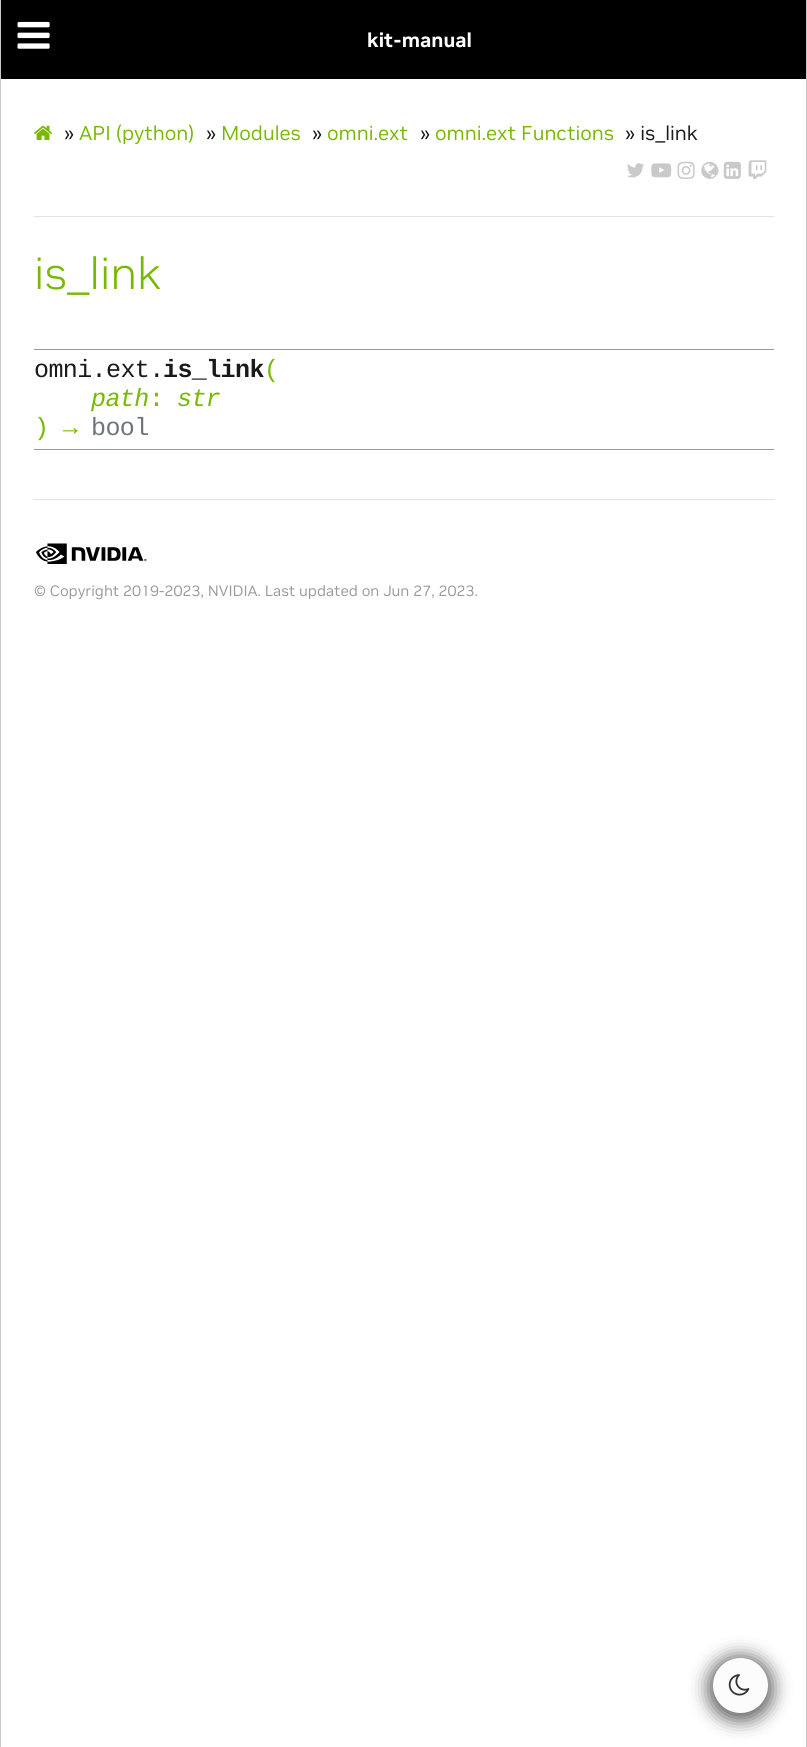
import math
import cairo


def use_color(cr, r, g, b):
  cr.set_source_rgb(r / 255, g / 255, b / 255)

def text(cr, x, y, s, family, size, color, bold=False, italic=False):
  cr.select_font_face(family, cairo.FONT_SLANT_ITALIC if italic else cairo.FONT_SLANT_NORMAL, cairo.FONT_WEIGHT_BOLD if bold else cairo.FONT_WEIGHT_NORMAL)
  cr.set_font_size(size)
  use_color(cr, *color)
  cr.move_to(x, y)
  cr.show_text(s)

def spaced_text(cr, x, y, s, letter, word):
  cr.move_to(x, y)
  for ch in s:
    cr.show_text(ch)
    cr.rel_move_to(letter + word * (ch == ' '), 0)

def box(cr, x, y, w, h, *color):
  use_color(cr, *color)
  cr.rectangle(x, y, w, h)
  cr.fill()

def round_rect(cr, x, y, w, h, r):
  cr.new_sub_path()
  for i, (u, v) in enumerate([(x + w - r, y + h - r), (x + r, y + h - r), (x + r, y + r), (x + w - r, y + r)]):
    cr.arc(u, v, r, i * math.pi / 2, (i + 1) * math.pi / 2)
  cr.close_path()

def shadow(cr, x, y, w, h, r, blur, alpha):
  cr.push_group_with_content(cairo.CONTENT_ALPHA)
  cr.set_operator(cairo.OPERATOR_SOURCE)
  for i in range(15, -16, -2):
    e = blur * i / 6
    if min(w, h) + 2 * e > 0:
      cr.set_source_rgba(0, 0, 0, alpha * math.erfc((i - 1) / 8.5) / 2)
      round_rect(cr, x - e, y - e, w + 2 * e, h + 2 * e, max(0, min(r + e + blur * .6, min(w, h) / 2 + e)))
      cr.fill()
  cr.mask(cr.pop_group())

def picture(cr, path, x, y, w, h):
  cr.save()
  cr.set_source_surface(cairo.ImageSurface.create_from_png(path), x, y)
  cr.rectangle(x, y, w, h)
  cr.fill()
  cr.restore()

def draw(cr):
  use_color(cr, 255, 255, 255)
  cr.paint()
  box(cr, 806, 0, 1, 1747, 201, 201, 201)
  box(cr, 0, 0, 1, 1747, 201, 201, 201)
  box(cr, 1, 0, 805, 79, 0, 0, 0)
  picture(cr, "img_01.png", 17, 21, 33, 28)
  picture(cr, "img_02.png", 34, 125, 18, 15)
  picture(cr, "img_03.png", 627, 163, 17, 15)
  picture(cr, "img_04.png", 651, 163, 21, 15)
  picture(cr, "img_05.png", 677, 161, 18, 18)
  picture(cr, "img_06.png", 701, 161, 18, 18)
  picture(cr, "img_07.png", 723, 161, 18, 18)
  picture(cr, "img_08.png", 748, 160, 19, 19)
  box(cr, 34, 216, 740, 1, 225, 228, 229)
  box(cr, 34, 349, 740, 1, 153, 153, 153)
  box(cr, 34, 449, 740, 1, 153, 153, 153)
  box(cr, 34, 499, 740, 1, 225, 228, 229)
  picture(cr, "img_09.png", 36, 543, 111, 21)
  use_color(cr, 0, 0, 0)
  shadow(cr, 708, 1656, 65, 65, 32.5, 9, 0.62)
  use_color(cr, 252, 252, 252)
  cr.arc(740.5, 1685.5, 27.5, 0, 2 * math.pi)
  cr.fill()
  picture(cr, "img_10.png", 728, 1674, 22, 22)
  text(cr, 367, 47, "kit-manual", "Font", 20, (255, 255, 255), bold=True)
  text(cr, 64, 140, "»", "Font", 20, (26, 26, 26))
  text(cr, 79, 140, "API (python)", "Font", 20, (118, 185, 0))
  text(cr, 206, 140, "»", "Font", 20, (26, 26, 26))
  text(cr, 221, 140, "Modules", "Font", 20, (118, 185, 0))
  text(cr, 312, 140, "»", "Font", 20, (26, 26, 26))
  text(cr, 327, 140, "omni.ext", "Font", 20, (118, 185, 0))
  text(cr, 420, 140, "»", "Font", 20, (26, 26, 26))
  text(cr, 435, 140, "omni.ext Functions", "Font", 20, (118, 185, 0))
  text(cr, 625, 140, "» is_link", "Font", 20, (26, 26, 26))
  text(cr, 34, 289, "is_link", "Font Light", 45, (118, 185, 0))
  cr.select_font_face("Liberation Mono")
  cr.set_font_size(25)
  use_color(cr, 26, 26, 26)
  spaced_text(cr, 34, 377, "omni.ext.", -0.6, 0)
  cr.select_font_face("Liberation Mono", cairo.FONT_SLANT_NORMAL, cairo.FONT_WEIGHT_BOLD)
  spaced_text(cr, 163, 377, "is_link", -0.6, 0)
  cr.select_font_face("Liberation Mono")
  use_color(cr, 118, 185, 0)
  spaced_text(cr, 264, 377, "(", -0.6, 0)
  cr.select_font_face("Liberation Mono", cairo.FONT_SLANT_ITALIC)
  spaced_text(cr, 91, 406, "path", -0.6, 0)
  cr.select_font_face("Liberation Mono")
  spaced_text(cr, 149, 406, ":", -0.6, 0)
  cr.select_font_face("Liberation Mono", cairo.FONT_SLANT_ITALIC)
  spaced_text(cr, 177, 406, "str", -0.6, 0)
  cr.select_font_face("Liberation Mono")
  spaced_text(cr, 34, 435, ") →", -0.6, 0)
  use_color(cr, 108, 117, 125)
  spaced_text(cr, 91, 435, "bool", -0.6, 0)
  text(cr, 34, 596, "© Copyright 2019-2023, NVIDIA. Last updated on Jun 27, 2023.", "Font", 15, (153, 153, 153))


surface = cairo.ImageSurface(cairo.FORMAT_RGB24, 807, 1747)
cr = cairo.Context(surface)
options = cairo.FontOptions()
options.set_hint_metrics(cairo.HINT_METRICS_OFF)
options.set_hint_style(cairo.HINT_STYLE_NONE)
cr.set_font_options(options)
cr.set_miter_limit(4)
draw(cr)
surface.write_to_png("out.png")
